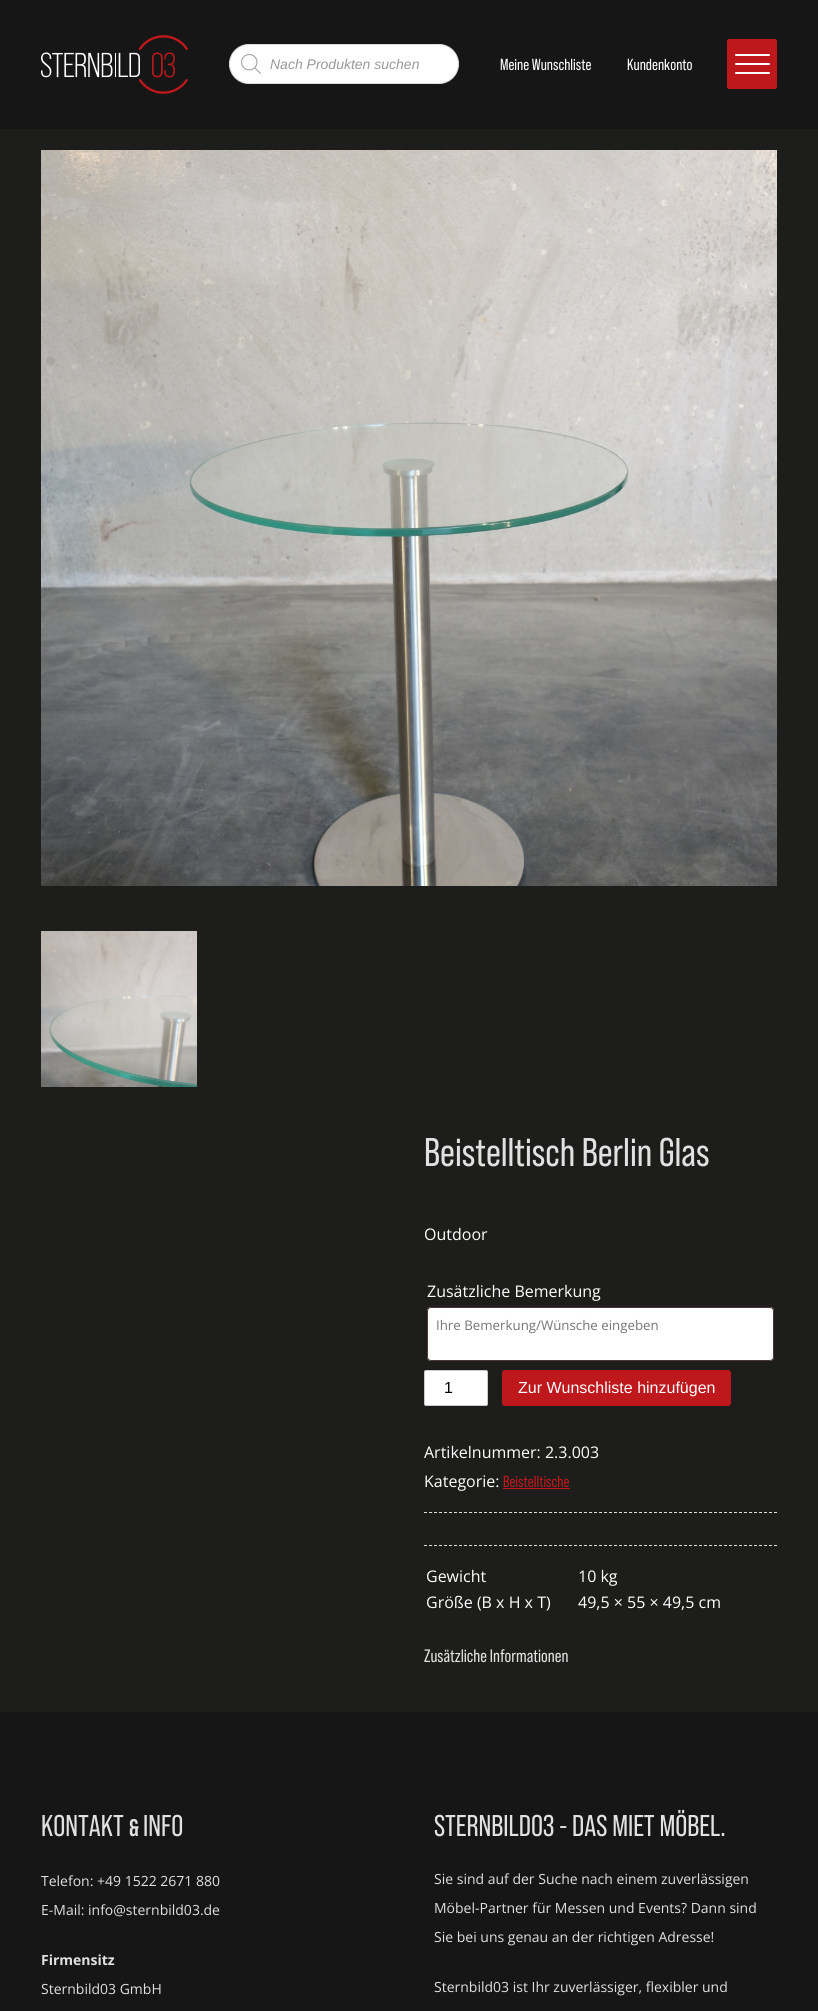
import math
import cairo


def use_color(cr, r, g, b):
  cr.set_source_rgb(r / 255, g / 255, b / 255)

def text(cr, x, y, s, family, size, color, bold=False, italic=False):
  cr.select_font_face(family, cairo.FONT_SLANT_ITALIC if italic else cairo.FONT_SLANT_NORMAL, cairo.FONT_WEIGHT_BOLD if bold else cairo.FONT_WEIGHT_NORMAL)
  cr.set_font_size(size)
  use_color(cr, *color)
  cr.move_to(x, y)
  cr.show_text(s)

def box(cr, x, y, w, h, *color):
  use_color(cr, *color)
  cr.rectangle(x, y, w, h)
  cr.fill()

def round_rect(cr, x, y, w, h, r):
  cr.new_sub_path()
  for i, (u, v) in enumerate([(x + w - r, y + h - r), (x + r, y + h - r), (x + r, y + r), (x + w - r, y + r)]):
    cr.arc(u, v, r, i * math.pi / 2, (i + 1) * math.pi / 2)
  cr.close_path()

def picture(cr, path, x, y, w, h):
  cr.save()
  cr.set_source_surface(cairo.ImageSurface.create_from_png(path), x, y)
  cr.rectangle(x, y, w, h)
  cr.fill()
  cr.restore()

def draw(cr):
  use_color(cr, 29, 29, 27)
  cr.paint()
  box(cr, 0, 0, 818, 129, 22, 22, 22)
  picture(cr, "img_01.png", 41, 35, 147, 59)
  use_color(cr, 255, 255, 255)
  round_rect(cr, 229.5, 44.5, 229, 39, 19.5)
  cr.fill_preserve()
  use_color(cr, 221, 221, 221)
  cr.set_line_width(1)
  cr.stroke()
  picture(cr, "img_02.png", 241, 54, 20, 20)
  use_color(cr, 190, 24, 28)
  round_rect(cr, 727, 39, 50, 50, 2)
  cr.fill()
  use_color(cr, 255, 255, 255)
  round_rect(cr, 735, 54, 35, 2, 1)
  cr.fill()
  round_rect(cr, 735, 63, 35, 2, 1)
  cr.fill()
  round_rect(cr, 735, 72, 35, 2, 1)
  cr.fill()
  picture(cr, "img_03.png", 41, 150, 736, 736)
  picture(cr, "img_04.png", 41, 931, 156, 156)
  round_rect(cr, 427, 1307, 347, 54, 4)
  cr.fill()
  round_rect(cr, 427.5, 1307.5, 346, 53, 3.5)
  cr.set_source_rgba(0.125, 0.027, 0.027, 0.8)
  cr.stroke()
  use_color(cr, 255, 255, 255)
  round_rect(cr, 424.5, 1370.5, 63, 35, 1.5)
  cr.fill_preserve()
  use_color(cr, 204, 204, 204)
  cr.stroke()
  use_color(cr, 191, 24, 28)
  round_rect(cr, 502, 1370, 229, 36, 3)
  cr.fill()
  box(cr, 503, 1488, 67, 1, 190, 24, 28)
  cr.new_path()
  cr.move_to(424, 1512.5)
  cr.line_to(777, 1512.5)
  use_color(cr, 221, 221, 221)
  cr.set_dash([3, 2])
  cr.stroke()
  cr.new_path()
  cr.move_to(424, 1545.5)
  cr.line_to(777, 1545.5)
  cr.stroke()
  box(cr, 0, 1712, 818, 299, 22, 22, 22)
  text(cr, 270, 69, "Nach Produkten suchen", "Liberation Sans", 14, (153, 153, 153), italic=True)
  text(cr, 500, 70, "Meine Wunschliste", "Bebas Neue", 16, (255, 255, 255))
  text(cr, 627, 70, "Kundenkonto", "Bebas Neue", 16, (255, 255, 255))
  text(cr, 424, 1166, "Beistelltisch Berlin Glas", "Bebas Neue", 40, (225, 225, 225))
  text(cr, 424, 1240, "Outdoor", "Open Sans", 16, (255, 255, 255))
  text(cr, 427, 1297, "Zusätzliche Bemerkung", "Open Sans", 16, (255, 255, 255))
  text(cr, 436, 1330, "Ihre Bemerkung/Wünsche eingeben", "Open Sans", 13.3, (117, 117, 117))
  text(cr, 444, 1393, "1", "Liberation Sans", 16, (0, 0, 0))
  text(cr, 518, 1393, "Zur Wunschliste hinzufügen", "Liberation Sans", 16, (255, 255, 255))
  text(cr, 424, 1458, "Artikelnummer: 2.3.003", "Open Sans", 16, (255, 255, 255))
  text(cr, 424, 1487, "Kategorie:", "Open Sans", 16, (255, 255, 255))
  text(cr, 503, 1487, "Beistelltische", "Bebas Neue", 16, (190, 24, 28))
  text(cr, 426, 1582, "Gewicht", "Open Sans", 16, (255, 255, 255))
  text(cr, 578, 1582, "10 kg", "Open Sans", 16, (255, 255, 255))
  text(cr, 426, 1608, "Größe (B x H x T)", "Open Sans", 16, (255, 255, 255))
  text(cr, 578, 1608, "49,5 × 55 × 49,5 cm", "Open Sans", 16, (255, 255, 255))
  text(cr, 424, 1662, "Zusätzliche Informationen", "Bebas Neue", 18, (225, 225, 225))
  text(cr, 41, 1836, "KONTAKT", "Bebas Neue", 30, (225, 225, 225))
  text(cr, 129, 1836, "&", "Bebas Neue", 24, (225, 225, 225), bold=True)
  text(cr, 143, 1836, "INFO", "Bebas Neue", 30, (225, 225, 225))
  text(cr, 41, 1886, "Telefon: +49 1522 2671 880", "Open Sans", 14, (225, 225, 225))
  text(cr, 41, 1915, "E-Mail: info@sternbild03.de", "Open Sans", 14, (225, 225, 225))
  text(cr, 41, 1965, "Firmensitz", "Open Sans", 14, (225, 225, 225), bold=True)
  text(cr, 41, 1994, "Sternbild03 GmbH", "Open Sans", 14, (225, 225, 225))
  text(cr, 434, 1836, "STERNBILD03 - DAS MIET MÖBEL.", "Bebas Neue", 30, (225, 225, 225))
  text(cr, 434, 1884, "Sie sind auf der Suche nach einem zuverlässigen", "Open Sans", 14, (225, 225, 225))
  text(cr, 434, 1913, "Möbel-Partner für Messen und Events? Dann sind", "Open Sans", 14, (225, 225, 225))
  text(cr, 434, 1942, "Sie bei uns genau an der richtigen Adresse!", "Open Sans", 14, (225, 225, 225))
  text(cr, 434, 1992, "Sternbild03 ist Ihr zuverlässiger, flexibler und", "Open Sans", 14, (225, 225, 225))


surface = cairo.ImageSurface(cairo.FORMAT_RGB24, 818, 2011)
cr = cairo.Context(surface)
options = cairo.FontOptions()
options.set_hint_metrics(cairo.HINT_METRICS_OFF)
options.set_hint_style(cairo.HINT_STYLE_NONE)
cr.set_font_options(options)
cr.set_miter_limit(4)
draw(cr)
surface.write_to_png("out.png")
